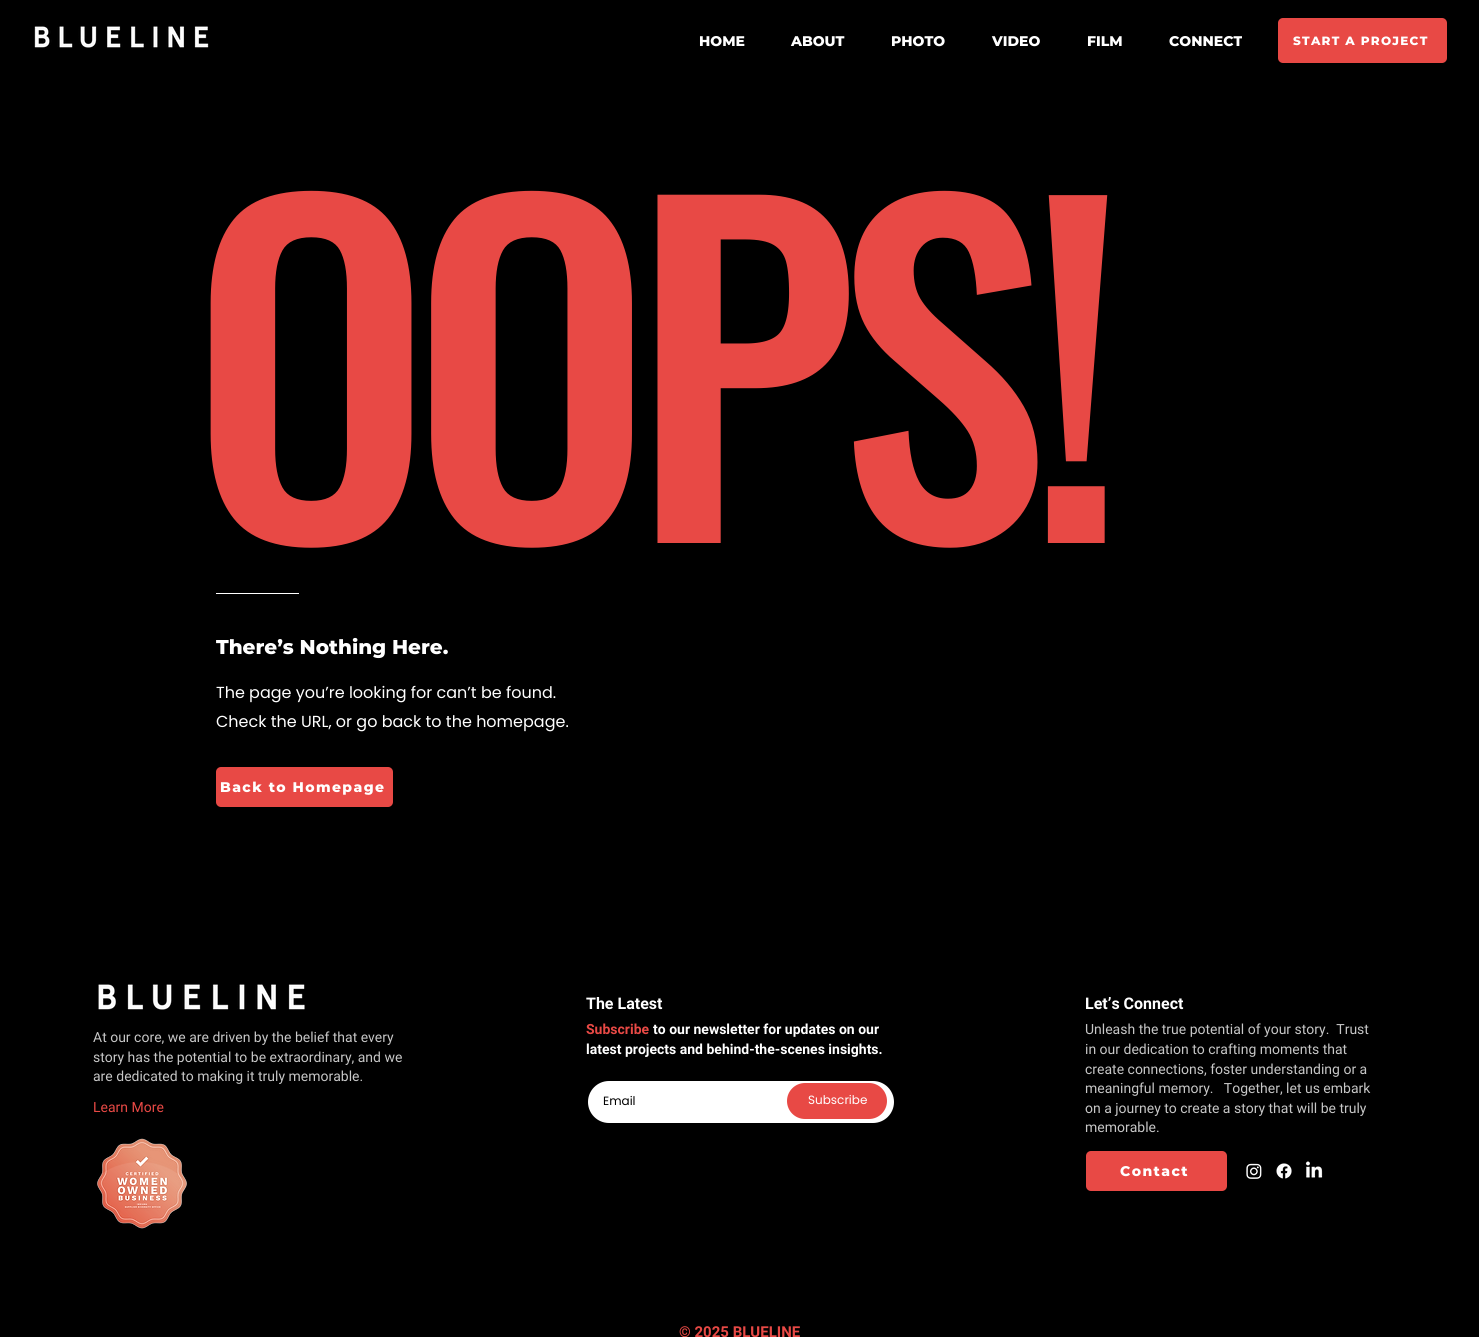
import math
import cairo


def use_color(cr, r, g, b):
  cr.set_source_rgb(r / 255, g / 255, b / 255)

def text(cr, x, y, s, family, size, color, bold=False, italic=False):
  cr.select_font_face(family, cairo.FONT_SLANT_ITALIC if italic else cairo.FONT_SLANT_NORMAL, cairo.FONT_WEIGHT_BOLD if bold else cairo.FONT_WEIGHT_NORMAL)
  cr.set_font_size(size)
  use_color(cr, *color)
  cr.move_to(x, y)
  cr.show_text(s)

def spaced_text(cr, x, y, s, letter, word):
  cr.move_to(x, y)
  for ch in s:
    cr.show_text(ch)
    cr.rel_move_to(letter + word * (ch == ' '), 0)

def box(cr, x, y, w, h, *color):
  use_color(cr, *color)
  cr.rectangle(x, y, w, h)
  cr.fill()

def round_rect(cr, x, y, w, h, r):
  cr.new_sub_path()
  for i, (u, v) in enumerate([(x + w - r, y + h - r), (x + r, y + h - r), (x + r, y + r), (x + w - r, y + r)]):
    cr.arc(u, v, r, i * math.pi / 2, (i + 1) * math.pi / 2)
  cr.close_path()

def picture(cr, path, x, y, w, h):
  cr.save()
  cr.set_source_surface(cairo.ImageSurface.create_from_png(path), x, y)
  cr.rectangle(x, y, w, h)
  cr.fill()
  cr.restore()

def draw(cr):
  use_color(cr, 0, 0, 0)
  cr.paint()
  picture(cr, "img_01.png", 34, 26, 175, 22)
  use_color(cr, 232, 73, 69)
  round_rect(cr, 1278, 18, 169, 45, 5)
  cr.fill()
  box(cr, 216, 593, 83, 1, 255, 255, 255)
  use_color(cr, 232, 73, 69)
  round_rect(cr, 216, 767, 177, 40, 5)
  cr.fill()
  picture(cr, "img_02.png", 98, 984, 207, 26)
  picture(cr, "img_03.png", 97, 1138, 90, 91)
  use_color(cr, 255, 255, 255)
  round_rect(cr, 587, 1080, 308, 44, 22)
  cr.fill_preserve()
  use_color(cr, 0, 0, 0)
  cr.stroke()
  use_color(cr, 232, 73, 69)
  round_rect(cr, 787, 1083, 100, 36, 18)
  cr.fill()
  round_rect(cr, 1086, 1151, 141, 40, 5)
  cr.fill()
  picture(cr, "img_04.png", 1246, 1163, 16, 16)
  picture(cr, "img_05.png", 1276, 1163, 16, 16)
  picture(cr, "img_06.png", 1305, 1161, 18, 17)
  text(cr, 699, 46, "HOME", "Montserrat ExtraBold", 14, (255, 255, 255))
  text(cr, 791, 46, "ABOUT", "Montserrat ExtraBold", 14, (255, 255, 255))
  text(cr, 891, 46, "PHOTO", "Montserrat ExtraBold", 14, (255, 255, 255))
  text(cr, 992, 46, "VIDEO", "Montserrat ExtraBold", 14, (255, 255, 255))
  text(cr, 1087, 46, "FILM", "Montserrat ExtraBold", 14, (255, 255, 255))
  text(cr, 1169, 46, "CONNECT", "Montserrat ExtraBold", 14, (255, 255, 255))
  cr.select_font_face("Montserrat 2 ExtraBold")
  cr.set_font_size(12)
  spaced_text(cr, 1293, 45, "START A PROJECT", 1.25, 0)
  cr.select_font_face("Oswald Medium")
  cr.set_font_size(430)
  use_color(cr, 232, 73, 69)
  spaced_text(cr, 190, 543, "OOPS!", -21.5, 0)
  text(cr, 216, 654, "There’s Nothing Here.", "Montserrat ExtraBold", 20, (255, 255, 255))
  text(cr, 216, 698, "The page you’re looking for can’t be found.", "Poppins", 16, (255, 255, 255))
  text(cr, 216, 727, "Check the URL, or go back to the homepage.", "Poppins", 16, (255, 255, 255))
  cr.select_font_face("Montserrat 2 ExtraBold")
  cr.set_font_size(14)
  spaced_text(cr, 220, 792, "Back to Homepage", 1.4, 0)
  text(cr, 93, 1042, "At our core, we are driven by the belief that every", "Roboto", 14, (199, 199, 199))
  text(cr, 93, 1062, "story has the potential to be extraordinary, and we", "Roboto", 14, (199, 199, 199))
  text(cr, 93, 1081, "are dedicated to making it truly memorable.", "Roboto", 14, (199, 199, 199))
  text(cr, 93, 1112, "Learn More", "Roboto", 14, (232, 73, 69))
  text(cr, 586, 1009, "The Latest", "Roboto", 16, (255, 255, 255), bold=True)
  text(cr, 586, 1034, "Subscribe", "Roboto", 14, (232, 73, 69), bold=True)
  text(cr, 653, 1034, "to our newsletter for updates on our", "Roboto", 14, (255, 255, 255), bold=True)
  text(cr, 586, 1054, "latest projects and behind-the-scenes insights.", "Roboto", 14, (255, 255, 255), bold=True)
  text(cr, 603, 1105, "Email", "Poppins", 12, (0, 0, 0))
  text(cr, 808, 1104, "Subscribe", "Poppins", 12, (255, 255, 255))
  text(cr, 1085, 1009, "Let’s Connect", "Roboto", 16, (255, 255, 255), bold=True)
  text(cr, 1085, 1034, "Unleash the true potential of your story.  Trust", "Roboto", 14, (199, 199, 199))
  text(cr, 1085, 1054, "in our dedication to crafting moments that", "Roboto", 14, (199, 199, 199))
  text(cr, 1085, 1074, "create connections, foster understanding or a", "Roboto", 14, (199, 199, 199))
  text(cr, 1085, 1093, "meaningful memory.   Together, let us embark", "Roboto", 14, (199, 199, 199))
  text(cr, 1085, 1113, "on a journey to create a story that will be truly", "Roboto", 14, (199, 199, 199))
  text(cr, 1085, 1132, "memorable.", "Roboto", 14, (199, 199, 199))
  cr.select_font_face("Montserrat 2 ExtraBold")
  use_color(cr, 255, 255, 255)
  spaced_text(cr, 1120, 1176, "Contact", 1.4, 0)
  text(cr, 679, 1337, "© 2025 BLUELINE", "Roboto", 15, (232, 73, 69), bold=True)


surface = cairo.ImageSurface(cairo.FORMAT_RGB24, 1479, 1337)
cr = cairo.Context(surface)
options = cairo.FontOptions()
options.set_hint_metrics(cairo.HINT_METRICS_OFF)
options.set_hint_style(cairo.HINT_STYLE_NONE)
cr.set_font_options(options)
cr.set_miter_limit(4)
draw(cr)
surface.write_to_png("out.png")
